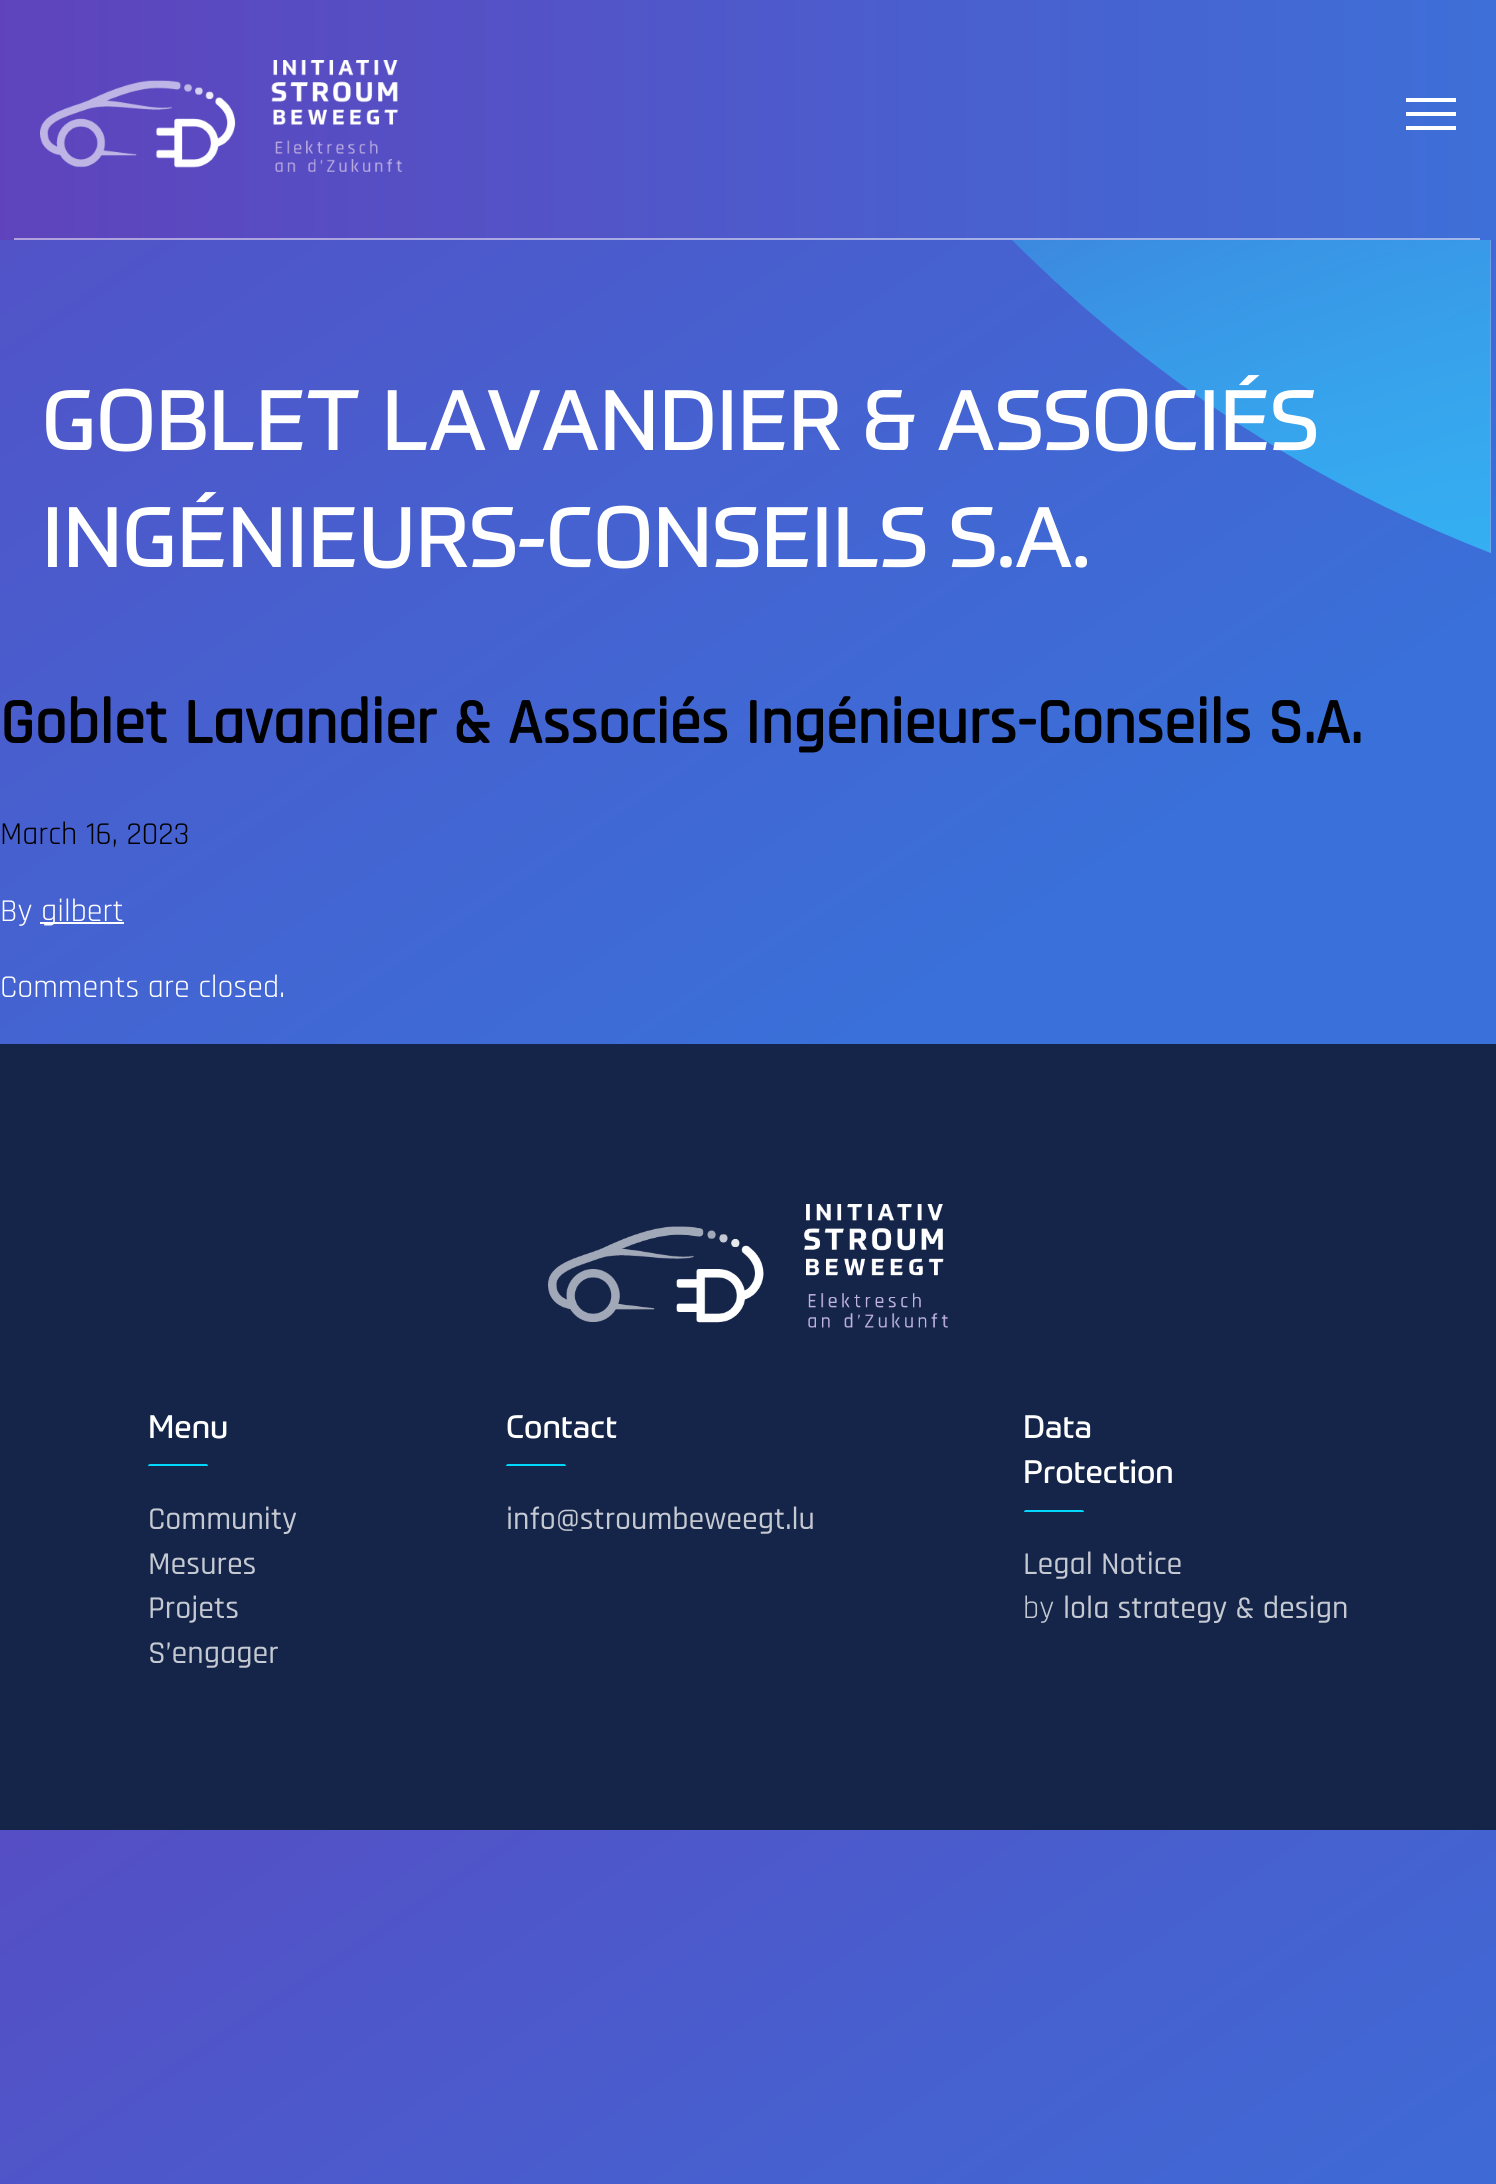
import math
import cairo


def use_color(cr, r, g, b):
  cr.set_source_rgb(r / 255, g / 255, b / 255)

def text(cr, x, y, s, family, size, color, bold=False, italic=False):
  cr.select_font_face(family, cairo.FONT_SLANT_ITALIC if italic else cairo.FONT_SLANT_NORMAL, cairo.FONT_WEIGHT_BOLD if bold else cairo.FONT_WEIGHT_NORMAL)
  cr.set_font_size(size)
  use_color(cr, *color)
  cr.move_to(x, y)
  cr.show_text(s)

def box(cr, x, y, w, h, *color):
  use_color(cr, *color)
  cr.rectangle(x, y, w, h)
  cr.fill()

def picture(cr, path, x, y, w, h):
  cr.save()
  cr.set_source_surface(cairo.ImageSurface.create_from_png(path), x, y)
  cr.rectangle(x, y, w, h)
  cr.fill()
  cr.restore()

def draw(cr):
  use_color(cr, 255, 255, 255)
  cr.paint()
  gradient = cairo.LinearGradient(-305, -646, 1406, 1891)
  gradient.add_color_stop_rgba(0, 0.392, 0.235, 0.725, 1)
  gradient.add_color_stop_rgba(0.67, 0.227, 0.439, 0.851, 1)
  cr.set_source(gradient)
  cr.rectangle(0, 240, 1496, 804)
  cr.fill()
  gradient = cairo.LinearGradient(-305, 1184, 1406, 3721)
  gradient.add_color_stop_rgba(0, 0.392, 0.235, 0.725, 1)
  gradient.add_color_stop_rgba(0.67, 0.227, 0.439, 0.851, 1)
  cr.set_source(gradient)
  cr.rectangle(0, 1830, 1496, 354)
  cr.fill()
  gradient = cairo.LinearGradient(-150, 120, 1496, 120)
  gradient.add_color_stop_rgba(0, 0.384, 0.247, 0.729, 1)
  gradient.add_color_stop_rgba(1, 0.243, 0.435, 0.847, 1)
  cr.set_source(gradient)
  cr.rectangle(0, 0, 1496, 240)
  cr.fill()
  picture(cr, "img_01.png", 40, 60, 362, 112)
  box(cr, 1406, 112, 50, 4, 255, 255, 255)
  box(cr, 1406, 98, 50, 4, 255, 255, 255)
  box(cr, 1406, 126, 50, 4, 255, 255, 255)
  cr.set_source_rgba(1, 1, 1, 0.5)
  cr.rectangle(14, 238, 1466, 2)
  cr.fill()
  picture(cr, "img_02.png", 1012, 240, 479, 313)
  box(cr, 40, 922, 84, 2, 255, 255, 255)
  box(cr, 0, 1044, 1496, 786, 21, 37, 74)
  picture(cr, "img_03.png", 548, 1204, 400, 124)
  use_color(cr, 0, 216, 255)
  cr.new_path()
  cr.move_to(150, 1464)
  cr.line_to(206, 1464)
  cr.curve_to(207, 1464, 208, 1465, 208, 1466)
  cr.line_to(148, 1466)
  cr.curve_to(148, 1465, 149, 1464, 150, 1464)
  cr.close_path()
  cr.fill()
  cr.new_path()
  cr.move_to(508, 1464)
  cr.line_to(564, 1464)
  cr.curve_to(565, 1464, 566, 1465, 566, 1466)
  cr.line_to(506, 1466)
  cr.curve_to(506, 1465, 507, 1464, 508, 1464)
  cr.close_path()
  cr.fill()
  cr.new_path()
  cr.move_to(1026, 1510)
  cr.line_to(1082, 1510)
  cr.curve_to(1083, 1510, 1084, 1511, 1084, 1512)
  cr.line_to(1024, 1512)
  cr.curve_to(1024, 1511, 1025, 1510, 1026, 1510)
  cr.close_path()
  cr.fill()
  text(cr, 42, 450, "GOBLET LAVANDIER & ASSOCIÉS", "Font", 84, (255, 255, 255))
  text(cr, 42, 567, "INGÉNIEURS-CONSEILS S.A.", "Font", 84, (255, 255, 255))
  text(cr, 0, 743, "Goblet Lavandier & Associés Ingénieurs-Conseils S.A.", "Rajdhani", 64, (0, 0, 0), bold=True)
  text(cr, 0, 844, "March 16, 2023", "Rajdhani", 32, (0, 0, 0))
  text(cr, 0, 921, "By", "Rajdhani", 32, (255, 255, 255))
  text(cr, 41, 921, "gilbert", "Rajdhani", 32, (255, 255, 255))
  text(cr, 0, 997, "Comments are closed.", "Rajdhani", 32, (255, 255, 255))
  text(cr, 148, 1438, "Menu", "Font", 32, (255, 255, 255))
  text(cr, 148, 1529, "Community", "Rajdhani Medium", 32, (197, 201, 210))
  text(cr, 148, 1574, "Mesures", "Rajdhani Medium", 32, (197, 201, 210))
  text(cr, 148, 1618, "Projets", "Rajdhani Medium", 32, (197, 201, 210))
  text(cr, 148, 1663, "S’engager", "Rajdhani Medium", 32, (197, 201, 210))
  text(cr, 506, 1438, "Contact", "Font", 32, (255, 255, 255))
  text(cr, 506, 1529, "info@stroumbeweegt.lu", "Rajdhani Medium", 32, (197, 201, 210))
  text(cr, 1023, 1438, "Data", "Font", 32, (255, 255, 255))
  text(cr, 1023, 1483, "Protection", "Font", 32, (255, 255, 255))
  text(cr, 1023, 1574, "Legal Notice", "Rajdhani Medium", 32, (197, 201, 210))
  text(cr, 1023, 1618, "by", "Rajdhani", 32, (197, 201, 210))
  text(cr, 1063, 1618, "lola strategy & design", "Rajdhani Medium", 32, (197, 201, 210))


surface = cairo.ImageSurface(cairo.FORMAT_RGB24, 1496, 2184)
cr = cairo.Context(surface)
options = cairo.FontOptions()
options.set_hint_metrics(cairo.HINT_METRICS_OFF)
options.set_hint_style(cairo.HINT_STYLE_NONE)
cr.set_font_options(options)
cr.set_miter_limit(4)
draw(cr)
surface.write_to_png("out.png")
